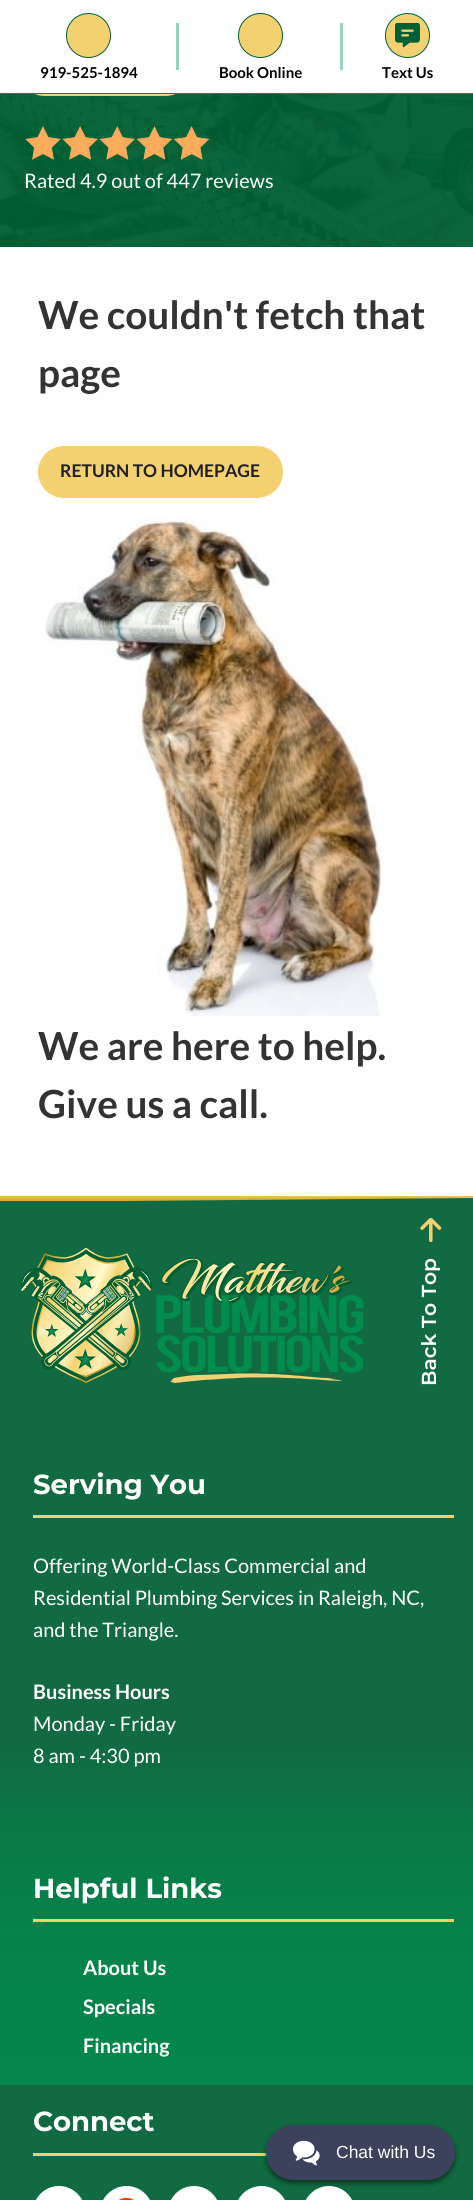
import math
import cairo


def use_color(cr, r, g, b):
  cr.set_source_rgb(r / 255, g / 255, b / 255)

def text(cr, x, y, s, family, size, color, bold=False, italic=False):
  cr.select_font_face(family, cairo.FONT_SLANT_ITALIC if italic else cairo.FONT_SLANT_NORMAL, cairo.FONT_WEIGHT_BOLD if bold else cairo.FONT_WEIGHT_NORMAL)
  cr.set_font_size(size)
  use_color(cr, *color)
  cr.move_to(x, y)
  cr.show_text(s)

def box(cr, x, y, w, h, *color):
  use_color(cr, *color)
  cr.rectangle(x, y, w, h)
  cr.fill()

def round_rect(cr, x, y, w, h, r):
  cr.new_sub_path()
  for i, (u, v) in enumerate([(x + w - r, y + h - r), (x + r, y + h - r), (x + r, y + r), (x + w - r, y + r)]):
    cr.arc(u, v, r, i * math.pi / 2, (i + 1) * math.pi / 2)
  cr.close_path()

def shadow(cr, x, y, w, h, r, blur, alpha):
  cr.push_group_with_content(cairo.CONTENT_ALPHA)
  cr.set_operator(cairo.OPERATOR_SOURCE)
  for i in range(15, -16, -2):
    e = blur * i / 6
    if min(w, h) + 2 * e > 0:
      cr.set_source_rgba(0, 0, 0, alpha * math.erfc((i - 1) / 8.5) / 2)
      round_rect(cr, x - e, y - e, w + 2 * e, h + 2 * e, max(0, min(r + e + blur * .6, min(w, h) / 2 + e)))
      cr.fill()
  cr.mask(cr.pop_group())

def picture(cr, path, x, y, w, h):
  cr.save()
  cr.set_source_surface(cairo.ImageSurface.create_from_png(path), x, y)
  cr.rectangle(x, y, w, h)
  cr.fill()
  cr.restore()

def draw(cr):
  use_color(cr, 255, 255, 255)
  cr.paint()
  picture(cr, "img_02.png", 0, 94, 473, 153)
  use_color(cr, 243, 209, 113)
  round_rect(cr, 19, 45, 172, 51, 25.5)
  cr.fill()
  box(cr, 19, 45, 172, 48, 255, 255, 255)
  box(cr, 0, 93, 473, 1, 0, 141, 78)
  use_color(cr, 243, 209, 113)
  cr.arc(88.5, 35.5, 22, 0, 2 * math.pi)
  cr.fill_preserve()
  use_color(cr, 0, 95, 51)
  cr.set_line_width(1)
  cr.stroke()
  box(cr, 176, 23, 3, 47, 153, 209, 184)
  use_color(cr, 243, 209, 113)
  cr.arc(260.5, 35.5, 22, 0, 2 * math.pi)
  cr.fill_preserve()
  use_color(cr, 0, 95, 51)
  cr.stroke()
  box(cr, 340, 23, 3, 47, 153, 209, 184)
  use_color(cr, 243, 209, 113)
  cr.arc(407.5, 35.5, 22, 0, 2 * math.pi)
  cr.fill_preserve()
  use_color(cr, 0, 95, 51)
  cr.stroke()
  picture(cr, "img_01.png", 395, 23, 25, 25)
  picture(cr, "img_03.png", 25, 126, 185, 34)
  use_color(cr, 243, 209, 113)
  round_rect(cr, 38, 446, 245, 52, 26)
  cr.fill()
  picture(cr, "img_04.png", 45, 516, 340, 500)
  picture(cr, "img_06.png", 0, 1198, 473, 1002)
  picture(cr, "img_05.png", 420, 1218, 22, 25)
  cr.save()
  cr.rectangle(0, 1196, 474, 5)
  cr.clip()
  gradient = cairo.LinearGradient(11, 1199, 11, 1191)
  gradient.add_color_stop_rgba(0, 0.867, 0.69, 0.212, 1)
  gradient.add_color_stop_rgba(0.34, 0.906, 0.765, 0.361, 1)
  gradient.add_color_stop_rgba(0.48, 1, 0.949, 0.729, 1)
  gradient.add_color_stop_rgba(0.62, 0.898, 0.749, 0.329, 1)
  gradient.add_color_stop_rgba(1, 0.867, 0.69, 0.212, 1)
  cr.set_source(gradient)
  cr.new_path()
  cr.move_to(0, 1202)
  cr.line_to(0, 1196)
  cr.line_to(473, 1196)
  cr.line_to(473, 1198)
  cr.close_path()
  cr.fill()
  cr.restore()
  picture(cr, "img_07.png", 21, 1247, 343, 136)
  box(cr, 33, 1515, 421, 3, 243, 209, 113)
  box(cr, 33, 1919, 421, 3, 243, 209, 113)
  box(cr, 33, 2153, 234, 3, 243, 209, 113)
  use_color(cr, 255, 255, 255)
  round_rect(cr, 33, 2186, 52, 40, 26)
  cr.fill()
  round_rect(cr, 100, 2186, 53, 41, 26.5)
  cr.fill()
  picture(cr, "img_08.png", 118, 2197, 16, 3)
  round_rect(cr, 168, 2186, 52, 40, 26)
  cr.fill()
  round_rect(cr, 235, 2186, 53, 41, 26.5)
  cr.fill()
  round_rect(cr, 303, 2186, 52, 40, 26)
  cr.fill()
  use_color(cr, 0, 0, 0)
  shadow(cr, 266, 2128, 189, 55, 27.5, 2.5, 0.5)
  use_color(cr, 60, 66, 92)
  round_rect(cr, 266, 2125, 189, 55, 27.5)
  cr.fill()
  picture(cr, "img_09.png", 292, 2140, 28, 26)
  text(cr, 40, 78, "919-525-1894", "Lato", 15, (0, 0, 0), bold=True)
  text(cr, 219, 78, "Book Online", "Lato", 15, (0, 0, 0), bold=True)
  text(cr, 382, 78, "Text Us", "Lato", 15, (0, 0, 0), bold=True)
  text(cr, 24, 188, "Rated 4.9 out of 447 reviews", "Lato", 20, (255, 255, 255))
  text(cr, 38, 329, "We couldn't fetch that", "Lato", 38.75, (51, 51, 51), bold=True)
  text(cr, 38, 387, "page", "Lato", 38.75, (51, 51, 51), bold=True)
  text(cr, 60, 477, "RETURN TO HOMEPAGE", "Lato", 17.5, (32, 33, 36), bold=True)
  text(cr, 38, 1060, "We are here to help.", "Lato", 38.75, (51, 51, 51), bold=True)
  text(cr, 38, 1118, "Give us a call.", "Lato", 38.75, (51, 51, 51), bold=True)
  cr.save()
  cr.translate(436, 1386)
  cr.rotate(-90 * math.pi / 180)
  text(cr, 0, 0, "Back To Top", "Montserrat SemiBold", 20.25, (255, 255, 255))
  cr.restore()
  text(cr, 33, 1494, "Serving You", "Montserrat", 27.5, (255, 255, 255), bold=True)
  text(cr, 33, 1573, "Offering World-Class Commercial and", "Lato", 20, (255, 255, 255))
  text(cr, 33, 1605, "Residential Plumbing Services in Raleigh, NC,", "Lato", 20, (255, 255, 255))
  text(cr, 33, 1637, "and the Triangle.", "Lato", 20, (255, 255, 255))
  text(cr, 33, 1699, "Business Hours", "Lato", 20, (255, 255, 255), bold=True)
  text(cr, 33, 1731, "Monday - Friday", "Lato", 20, (255, 255, 255))
  text(cr, 33, 1763, "8 am - 4:30 pm", "Lato", 20, (255, 255, 255))
  text(cr, 33, 1898, "Helpful Links", "Montserrat", 27.5, (255, 255, 255), bold=True)
  text(cr, 83, 1975, "About Us", "Lato", 20, (255, 255, 255), bold=True)
  text(cr, 83, 2014, "Specials", "Lato", 20, (255, 255, 255), bold=True)
  text(cr, 83, 2053, "Financing", "Lato", 20, (255, 255, 255), bold=True)
  text(cr, 33, 2131, "Connect", "Montserrat", 27.5, (255, 255, 255), bold=True)
  text(cr, 336, 2158, "Chat with Us", "Liberation Sans", 17.5, (255, 255, 255))


surface = cairo.ImageSurface(cairo.FORMAT_RGB24, 473, 2200)
cr = cairo.Context(surface)
options = cairo.FontOptions()
options.set_hint_metrics(cairo.HINT_METRICS_OFF)
options.set_hint_style(cairo.HINT_STYLE_NONE)
cr.set_font_options(options)
cr.set_miter_limit(4)
draw(cr)
surface.write_to_png("out.png")
